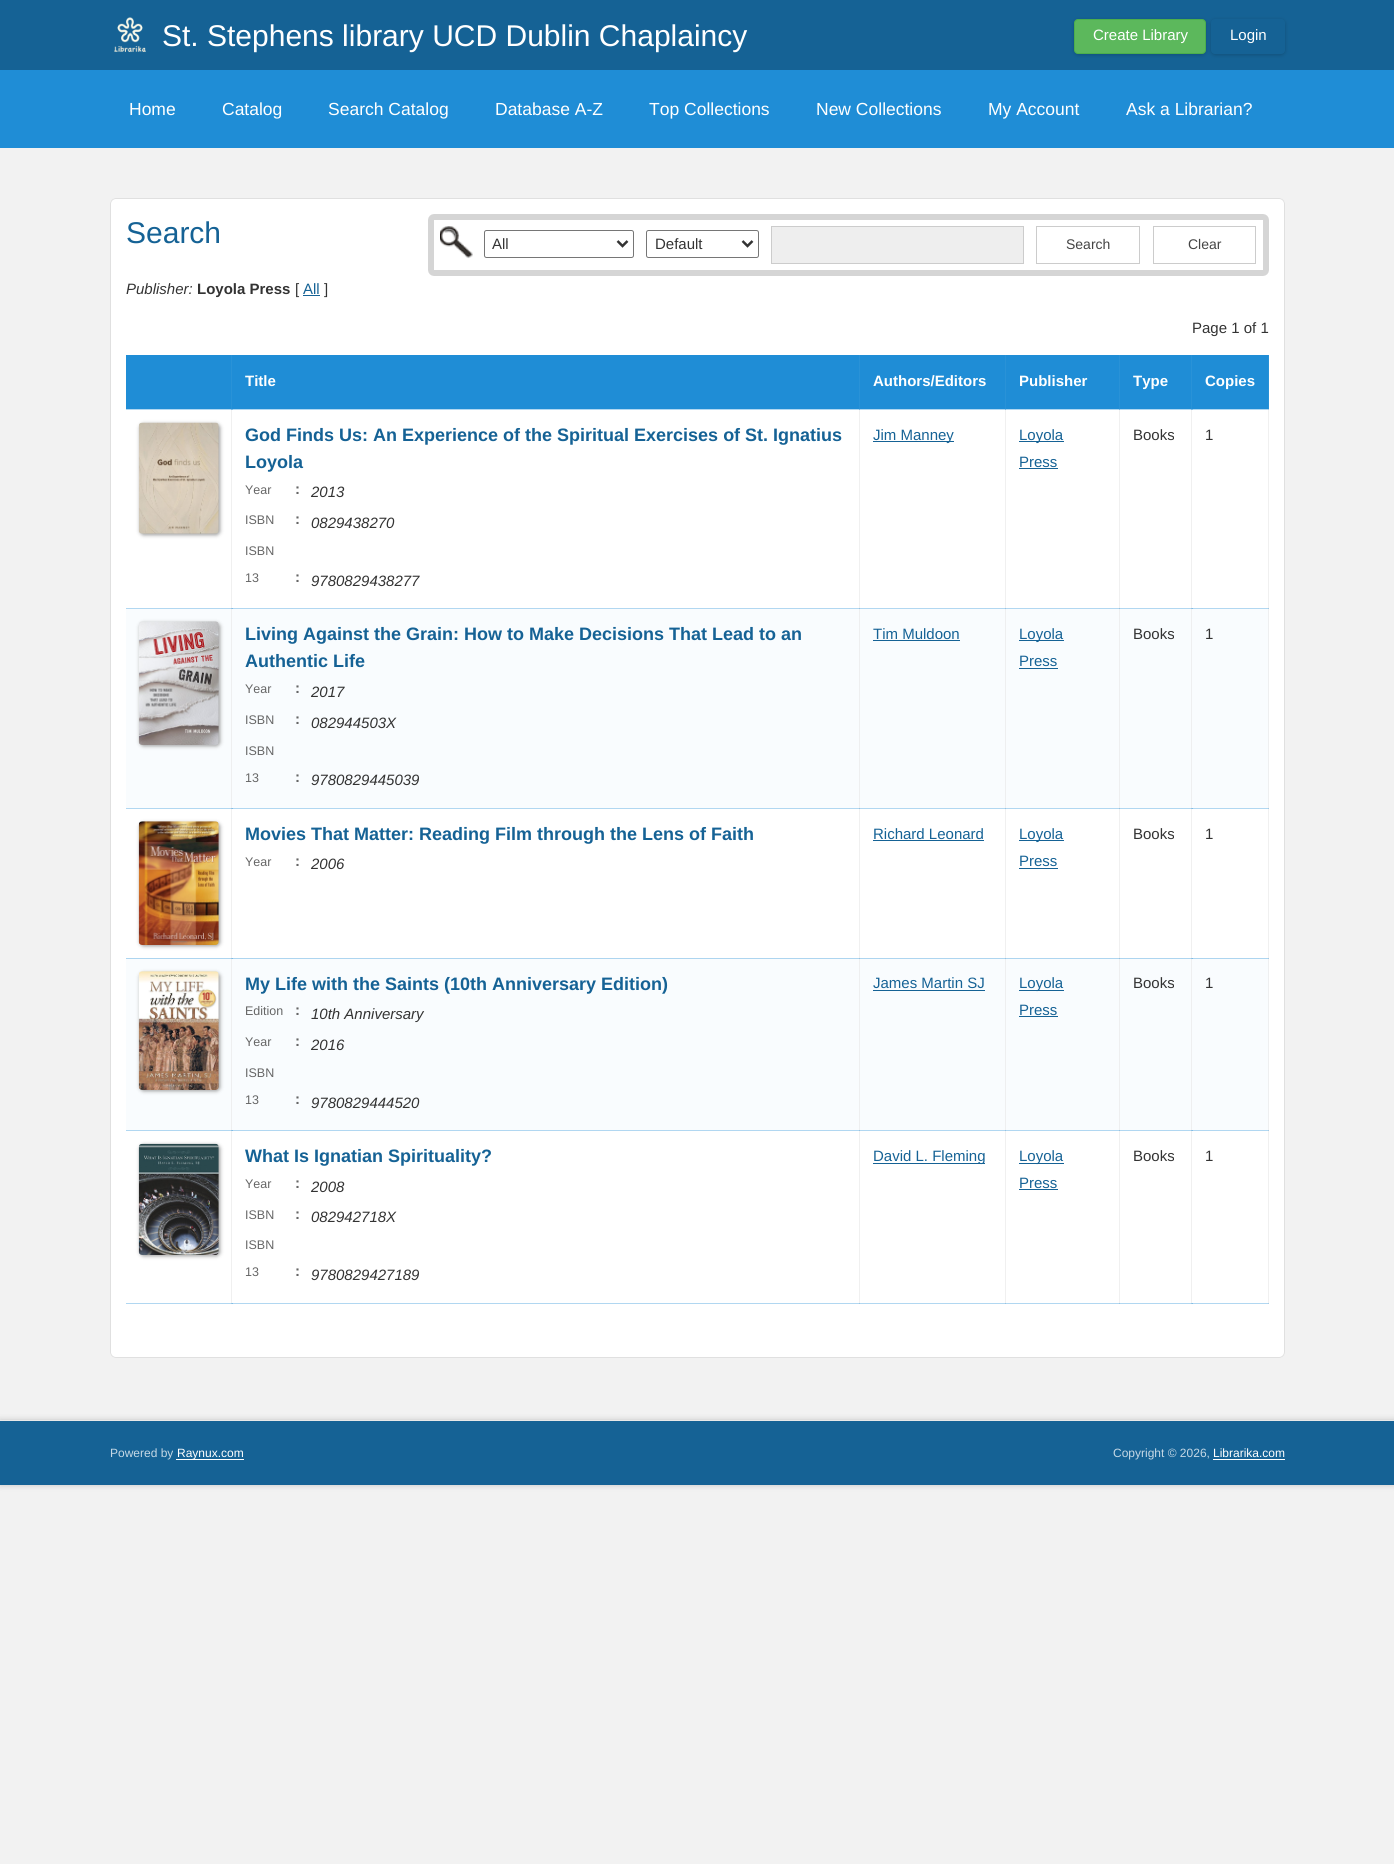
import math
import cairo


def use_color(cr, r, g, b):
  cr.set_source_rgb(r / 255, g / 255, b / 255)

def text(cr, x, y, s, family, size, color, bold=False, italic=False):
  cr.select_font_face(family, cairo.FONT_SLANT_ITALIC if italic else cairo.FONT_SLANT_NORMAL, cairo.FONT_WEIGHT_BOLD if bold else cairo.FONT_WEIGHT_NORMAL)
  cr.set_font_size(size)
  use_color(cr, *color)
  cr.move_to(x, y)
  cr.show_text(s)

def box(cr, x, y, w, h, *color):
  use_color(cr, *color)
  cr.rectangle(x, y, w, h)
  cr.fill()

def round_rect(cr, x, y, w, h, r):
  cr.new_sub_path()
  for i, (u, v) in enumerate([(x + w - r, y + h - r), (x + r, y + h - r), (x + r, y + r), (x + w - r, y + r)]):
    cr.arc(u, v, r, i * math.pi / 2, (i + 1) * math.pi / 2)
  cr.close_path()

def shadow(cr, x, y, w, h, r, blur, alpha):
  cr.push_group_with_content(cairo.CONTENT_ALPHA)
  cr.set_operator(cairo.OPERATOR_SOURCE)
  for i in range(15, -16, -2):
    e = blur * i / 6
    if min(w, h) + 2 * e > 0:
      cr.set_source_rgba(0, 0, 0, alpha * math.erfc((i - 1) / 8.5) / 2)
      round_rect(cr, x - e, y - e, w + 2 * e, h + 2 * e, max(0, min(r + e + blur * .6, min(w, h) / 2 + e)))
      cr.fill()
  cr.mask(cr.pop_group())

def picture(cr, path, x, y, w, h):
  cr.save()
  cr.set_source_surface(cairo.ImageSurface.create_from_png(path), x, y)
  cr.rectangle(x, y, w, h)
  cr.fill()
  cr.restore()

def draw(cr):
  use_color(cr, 242, 242, 242)
  cr.paint()
  box(cr, 0, 0, 1394, 70, 21, 98, 149)
  picture(cr, "img_01.png", 114, 17, 32, 35)
  use_color(cr, 0, 0, 0)
  shadow(cr, 1074, 20, 132, 35, 4, 2, 0.2)
  use_color(cr, 92, 184, 92)
  round_rect(cr, 1074.5, 19.5, 131, 34, 3.5)
  cr.fill_preserve()
  use_color(cr, 76, 174, 76)
  cr.set_line_width(1)
  cr.stroke()
  use_color(cr, 0, 0, 0)
  shadow(cr, 1211, 20, 74, 35, 4, 2, 0.2)
  use_color(cr, 21, 98, 149)
  round_rect(cr, 1211.5, 19.5, 73, 34, 3.5)
  cr.fill_preserve()
  cr.stroke()
  box(cr, 0, 70, 1394, 78, 31, 141, 214)
  use_color(cr, 255, 255, 255)
  round_rect(cr, 110, 198, 1175, 1160, 6)
  cr.fill()
  box(cr, 126, 409, 1143, 1, 177, 215, 241)
  box(cr, 231, 409, 2, 1, 126, 189, 232)
  box(cr, 1191, 409, 2, 1, 126, 189, 232)
  box(cr, 126, 608, 107, 1, 177, 215, 241)
  box(cr, 231, 409, 1, 200, 240, 240, 240)
  box(cr, 231, 409, 1, 1, 121, 183, 225)
  box(cr, 231, 608, 629, 1, 177, 215, 241)
  box(cr, 231, 608, 2, 1, 126, 189, 232)
  box(cr, 859, 409, 1, 200, 240, 240, 240)
  box(cr, 859, 409, 1, 1, 121, 183, 225)
  box(cr, 859, 608, 147, 1, 177, 215, 241)
  box(cr, 1005, 409, 1, 200, 240, 240, 240)
  box(cr, 1005, 409, 1, 1, 121, 183, 225)
  box(cr, 1005, 608, 115, 1, 177, 215, 241)
  box(cr, 1119, 409, 1, 200, 240, 240, 240)
  box(cr, 1119, 409, 1, 1, 121, 183, 225)
  box(cr, 1119, 608, 74, 1, 177, 215, 241)
  box(cr, 1191, 409, 1, 200, 240, 240, 240)
  box(cr, 1191, 409, 1, 1, 121, 183, 225)
  box(cr, 1191, 608, 78, 1, 177, 215, 241)
  box(cr, 1191, 608, 2, 1, 126, 189, 232)
  box(cr, 1268, 409, 1, 200, 240, 240, 240)
  box(cr, 1268, 409, 1, 1, 167, 205, 231)
  box(cr, 126, 808, 1143, 1, 177, 215, 241)
  box(cr, 231, 608, 1, 1, 147, 194, 226)
  box(cr, 231, 808, 2, 1, 126, 189, 232)
  box(cr, 859, 608, 1, 1, 147, 194, 226)
  box(cr, 1005, 608, 1, 1, 147, 194, 226)
  box(cr, 1119, 608, 1, 1, 147, 194, 226)
  box(cr, 1191, 608, 1, 1, 147, 194, 226)
  box(cr, 1191, 808, 2, 1, 126, 189, 232)
  box(cr, 1268, 608, 1, 1, 164, 202, 228)
  box(cr, 231, 808, 1, 151, 240, 240, 240)
  box(cr, 231, 808, 1, 1, 147, 194, 226)
  box(cr, 859, 808, 1, 151, 240, 240, 240)
  box(cr, 859, 808, 1, 1, 147, 194, 226)
  box(cr, 1005, 808, 1, 151, 240, 240, 240)
  box(cr, 1005, 808, 1, 1, 147, 194, 226)
  box(cr, 1119, 808, 1, 151, 240, 240, 240)
  box(cr, 1119, 808, 1, 1, 147, 194, 226)
  box(cr, 1191, 808, 1, 151, 240, 240, 240)
  box(cr, 1191, 808, 1, 1, 147, 194, 226)
  box(cr, 1268, 808, 1, 151, 240, 240, 240)
  box(cr, 1268, 808, 1, 1, 164, 202, 228)
  box(cr, 126, 1130, 1143, 1, 177, 215, 241)
  box(cr, 231, 1130, 2, 1, 126, 189, 232)
  box(cr, 1191, 1130, 2, 1, 126, 189, 232)
  box(cr, 126, 1303, 107, 1, 177, 215, 241)
  box(cr, 231, 1130, 1, 174, 240, 240, 240)
  box(cr, 231, 1130, 1, 1, 147, 194, 226)
  box(cr, 231, 1303, 629, 1, 177, 215, 241)
  box(cr, 231, 1303, 2, 1, 126, 189, 232)
  box(cr, 231, 1303, 1, 1, 149, 196, 228)
  box(cr, 859, 1130, 1, 174, 240, 240, 240)
  box(cr, 859, 1130, 1, 1, 147, 194, 226)
  box(cr, 859, 1303, 147, 1, 177, 215, 241)
  box(cr, 859, 1303, 1, 1, 149, 196, 228)
  box(cr, 1005, 1130, 1, 174, 240, 240, 240)
  box(cr, 1005, 1130, 1, 1, 147, 194, 226)
  box(cr, 1005, 1303, 115, 1, 177, 215, 241)
  box(cr, 1005, 1303, 1, 1, 149, 196, 228)
  box(cr, 1119, 1130, 1, 174, 240, 240, 240)
  box(cr, 1119, 1130, 1, 1, 147, 194, 226)
  box(cr, 1119, 1303, 74, 1, 177, 215, 241)
  box(cr, 1119, 1303, 1, 1, 149, 196, 228)
  box(cr, 1191, 1130, 1, 174, 240, 240, 240)
  box(cr, 1191, 1130, 1, 1, 147, 194, 226)
  box(cr, 1191, 1303, 78, 1, 177, 215, 241)
  box(cr, 1191, 1303, 2, 1, 126, 189, 232)
  box(cr, 1191, 1303, 1, 1, 149, 196, 228)
  round_rect(cr, 110.5, 198.5, 1174, 1159, 5.5)
  use_color(cr, 224, 224, 224)
  cr.stroke()
  round_rect(cr, 431, 217, 835, 56, 3)
  use_color(cr, 213, 213, 213)
  cr.set_line_width(6)
  cr.stroke()
  picture(cr, "img_02.png", 440, 226, 33, 33)
  round_rect(cr, 484.5, 230.5, 149, 27, 2)
  use_color(cr, 118, 118, 118)
  cr.set_line_width(1)
  cr.stroke()
  cr.new_path()
  cr.move_to(617.5, 241)
  cr.line_to(622.5, 246)
  cr.line_to(627.5, 241)
  use_color(cr, 51, 51, 51)
  cr.set_line_width(2.5)
  cr.stroke()
  round_rect(cr, 646.5, 230.5, 112, 27, 2)
  use_color(cr, 118, 118, 118)
  cr.set_line_width(1)
  cr.stroke()
  cr.new_path()
  cr.move_to(742.5, 241)
  cr.line_to(747.5, 246)
  cr.line_to(752.5, 241)
  use_color(cr, 51, 51, 51)
  cr.set_line_width(2.5)
  cr.stroke()
  use_color(cr, 238, 238, 238)
  cr.rectangle(771.5, 226.5, 252, 37)
  cr.fill_preserve()
  use_color(cr, 204, 204, 204)
  cr.set_line_width(1)
  cr.stroke()
  cr.rectangle(1036.5, 226.5, 103, 37)
  cr.stroke()
  cr.rectangle(1153.5, 226.5, 102, 37)
  cr.stroke()
  box(cr, 303, 295, 17, 1, 21, 98, 149)
  box(cr, 126, 355, 1143, 1, 31, 141, 214)
  box(cr, 231, 355, 1, 1, 41, 146, 215)
  box(cr, 859, 355, 1, 1, 41, 146, 215)
  box(cr, 1005, 355, 1, 1, 41, 146, 215)
  box(cr, 1119, 355, 1, 1, 41, 146, 215)
  box(cr, 1191, 355, 1, 1, 41, 146, 215)
  box(cr, 1268, 355, 1, 1, 41, 146, 215)
  box(cr, 126, 356, 733, 53, 31, 141, 214)
  box(cr, 231, 356, 1, 53, 41, 146, 215)
  box(cr, 859, 356, 1, 53, 41, 146, 215)
  box(cr, 860, 356, 145, 53, 31, 141, 214)
  box(cr, 1005, 356, 1, 53, 41, 146, 215)
  box(cr, 1006, 356, 113, 53, 31, 141, 214)
  box(cr, 1119, 356, 1, 53, 41, 146, 215)
  box(cr, 1120, 356, 71, 53, 31, 141, 214)
  box(cr, 1192, 356, 76, 53, 31, 141, 214)
  box(cr, 1191, 356, 1, 53, 41, 146, 215)
  box(cr, 1268, 356, 1, 53, 41, 146, 215)
  use_color(cr, 153, 153, 153)
  shadow(cr, 140, 424, 80, 111, 4, 2, 1)
  picture(cr, "img_03.png", 138, 422, 81, 112)
  box(cr, 873, 441, 81, 1, 21, 98, 149)
  box(cr, 1019, 441, 45, 1, 21, 98, 149)
  box(cr, 1019, 468, 39, 1, 21, 98, 149)
  box(cr, 126, 609, 1142, 199, 249, 252, 254)
  box(cr, 231, 609, 1, 199, 238, 239, 240)
  box(cr, 859, 609, 1, 199, 238, 239, 240)
  box(cr, 1005, 609, 1, 199, 238, 239, 240)
  box(cr, 1119, 609, 1, 199, 238, 239, 240)
  box(cr, 1191, 609, 1, 199, 238, 239, 240)
  box(cr, 1268, 609, 1, 199, 238, 239, 240)
  use_color(cr, 153, 153, 153)
  shadow(cr, 140, 623, 80, 123, 4, 2, 1)
  picture(cr, "img_04.png", 138, 621, 81, 124)
  box(cr, 873, 640, 87, 1, 21, 98, 149)
  box(cr, 1019, 640, 45, 1, 21, 98, 149)
  box(cr, 1019, 668, 39, 1, 21, 98, 149)
  use_color(cr, 153, 153, 153)
  shadow(cr, 140, 823, 80, 123, 4, 2, 1)
  picture(cr, "img_05.png", 138, 821, 81, 124)
  box(cr, 873, 840, 111, 1, 21, 98, 149)
  box(cr, 1019, 840, 45, 1, 21, 98, 149)
  box(cr, 1019, 868, 39, 1, 21, 98, 149)
  box(cr, 126, 959, 1142, 171, 249, 252, 254)
  box(cr, 126, 958, 1143, 1, 173, 213, 240)
  box(cr, 231, 958, 2, 1, 123, 188, 231)
  box(cr, 1191, 958, 2, 1, 123, 188, 231)
  box(cr, 231, 958, 1, 172, 238, 239, 240)
  box(cr, 231, 958, 1, 1, 147, 194, 226)
  box(cr, 859, 958, 1, 172, 238, 239, 240)
  box(cr, 859, 958, 1, 1, 147, 194, 226)
  box(cr, 1005, 958, 1, 172, 238, 239, 240)
  box(cr, 1005, 958, 1, 1, 147, 194, 226)
  box(cr, 1119, 958, 1, 172, 238, 239, 240)
  box(cr, 1119, 958, 1, 1, 147, 194, 226)
  box(cr, 1191, 958, 1, 172, 238, 239, 240)
  box(cr, 1191, 958, 1, 1, 147, 194, 226)
  box(cr, 1268, 958, 1, 172, 238, 239, 240)
  box(cr, 1268, 958, 1, 1, 163, 201, 228)
  use_color(cr, 153, 153, 153)
  shadow(cr, 140, 973, 80, 118, 4, 2, 1)
  picture(cr, "img_06.png", 138, 971, 81, 119)
  box(cr, 873, 990, 112, 1, 21, 98, 149)
  box(cr, 1019, 990, 45, 1, 21, 98, 149)
  box(cr, 1019, 1016, 39, 1, 21, 98, 149)
  use_color(cr, 153, 153, 153)
  shadow(cr, 140, 1145, 80, 111, 4, 2, 1)
  picture(cr, "img_07.png", 138, 1143, 81, 112)
  box(cr, 873, 1163, 112, 1, 21, 98, 149)
  box(cr, 1019, 1163, 45, 1, 21, 98, 149)
  box(cr, 1019, 1189, 39, 1, 21, 98, 149)
  box(cr, 1268, 1130, 1, 174, 240, 240, 240)
  box(cr, 1268, 1130, 1, 1, 164, 202, 228)
  box(cr, 1268, 1303, 1, 1, 167, 205, 231)
  use_color(cr, 0, 0, 0)
  shadow(cr, 0, 1420, 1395, 65, 0, 3, 0.2)
  box(cr, 0, 1421, 1394, 64, 21, 98, 149)
  box(cr, 0, 1420, 1394, 1, 232, 232, 232)
  box(cr, 176, 1459, 68, 1, 255, 255, 255)
  box(cr, 1213, 1459, 72, 1, 255, 255, 255)
  text(cr, 162, 46, "St. Stephens library UCD Dublin Chaplaincy", "Liberation Sans", 30, (255, 255, 255))
  text(cr, 1093, 40, "Create Library", "Liberation Sans", 15, (255, 255, 255))
  text(cr, 1230, 40, "Login", "Liberation Sans", 15, (255, 255, 255))
  text(cr, 129, 115, "Home", "Liberation Sans", 17.5, (255, 255, 255))
  text(cr, 222, 115, "Catalog", "Liberation Sans", 17.5, (255, 255, 255))
  text(cr, 328, 115, "Search Catalog", "Liberation Sans", 17.5, (255, 255, 255))
  text(cr, 495, 115, "Database A-Z", "Liberation Sans", 17.5, (255, 255, 255))
  text(cr, 649, 115, "Top Collections", "Liberation Sans", 17.5, (255, 255, 255))
  text(cr, 816, 115, "New Collections", "Liberation Sans", 17.5, (255, 255, 255))
  text(cr, 988, 115, "My Account", "Liberation Sans", 17.5, (255, 255, 255))
  text(cr, 1126, 115, "Ask a Librarian?", "Liberation Sans", 17.5, (255, 255, 255))
  text(cr, 126, 243, "Search", "Liberation Sans", 30, (21, 98, 149))
  text(cr, 492, 249, "All", "Liberation Sans", 15, (51, 51, 51))
  text(cr, 655, 249, "Default", "Liberation Sans", 15, (51, 51, 51))
  text(cr, 1066, 249, "Search", "Liberation Sans", 14, (68, 68, 68))
  text(cr, 1188, 249, "Clear", "Liberation Sans", 14, (68, 68, 68))
  text(cr, 126, 294, "Publisher:", "Liberation Sans", 15, (51, 51, 51), italic=True)
  text(cr, 197, 294, "Loyola Press", "Liberation Sans", 15, (51, 51, 51), bold=True)
  text(cr, 295, 294, "[", "Liberation Sans", 15, (51, 51, 51))
  text(cr, 303, 294, "All", "Liberation Sans", 15, (21, 98, 149))
  text(cr, 324, 294, "]", "Liberation Sans", 15, (51, 51, 51))
  text(cr, 1192, 333, "Page 1 of 1", "Liberation Sans", 15, (51, 51, 51))
  text(cr, 245, 386, "Title", "Liberation Sans", 15, (255, 255, 255), bold=True)
  text(cr, 873, 386, "Authors/Editors", "Liberation Sans", 15, (255, 255, 255), bold=True)
  text(cr, 1019, 386, "Publisher", "Liberation Sans", 15, (255, 255, 255), bold=True)
  text(cr, 1133, 386, "Type", "Liberation Sans", 15, (255, 255, 255), bold=True)
  text(cr, 1205, 386, "Copies", "Liberation Sans", 15, (255, 255, 255), bold=True)
  text(cr, 245, 441, "God Finds Us: An Experience of the Spiritual Exercises of St. Ignatius", "Liberation Sans", 18, (21, 98, 149), bold=True)
  text(cr, 245, 468, "Loyola", "Liberation Sans", 18, (21, 98, 149), bold=True)
  text(cr, 245, 494, "Year", "Liberation Sans", 12.5, (102, 102, 102))
  text(cr, 295, 494, ":", "Liberation Sans", 15, (102, 102, 102), bold=True)
  text(cr, 311, 497, "2013", "Liberation Sans", 15, (51, 51, 51), italic=True)
  text(cr, 245, 524, "ISBN", "Liberation Sans", 12.5, (102, 102, 102))
  text(cr, 295, 524, ":", "Liberation Sans", 15, (102, 102, 102), bold=True)
  text(cr, 311, 528, "0829438270", "Liberation Sans", 15, (51, 51, 51), italic=True)
  text(cr, 245, 555, "ISBN", "Liberation Sans", 12.5, (102, 102, 102))
  text(cr, 245, 582, "13", "Liberation Sans", 12.5, (102, 102, 102))
  text(cr, 295, 582, ":", "Liberation Sans", 15, (102, 102, 102), bold=True)
  text(cr, 311, 586, "9780829438277", "Liberation Sans", 15, (51, 51, 51), italic=True)
  text(cr, 873, 440, "Jim Manney", "Liberation Sans", 15, (21, 98, 149))
  text(cr, 1019, 440, "Loyola", "Liberation Sans", 15, (21, 98, 149))
  text(cr, 1019, 467, "Press", "Liberation Sans", 15, (21, 98, 149))
  text(cr, 1133, 440, "Books", "Liberation Sans", 15, (51, 51, 51))
  text(cr, 1205, 440, "1", "Liberation Sans", 15, (51, 51, 51))
  text(cr, 245, 640, "Living Against the Grain: How to Make Decisions That Lead to an", "Liberation Sans", 18, (21, 98, 149), bold=True)
  text(cr, 245, 667, "Authentic Life", "Liberation Sans", 18, (21, 98, 149), bold=True)
  text(cr, 245, 693, "Year", "Liberation Sans", 12.5, (102, 102, 102))
  text(cr, 295, 693, ":", "Liberation Sans", 15, (102, 102, 102), bold=True)
  text(cr, 311, 697, "2017", "Liberation Sans", 15, (51, 51, 51), italic=True)
  text(cr, 245, 724, "ISBN", "Liberation Sans", 12.5, (102, 102, 102))
  text(cr, 295, 724, ":", "Liberation Sans", 15, (102, 102, 102), bold=True)
  text(cr, 311, 728, "082944503X", "Liberation Sans", 15, (51, 51, 51), italic=True)
  text(cr, 245, 755, "ISBN", "Liberation Sans", 12.5, (102, 102, 102))
  text(cr, 245, 782, "13", "Liberation Sans", 12.5, (102, 102, 102))
  text(cr, 295, 782, ":", "Liberation Sans", 15, (102, 102, 102), bold=True)
  text(cr, 311, 785, "9780829445039", "Liberation Sans", 15, (51, 51, 51), italic=True)
  text(cr, 873, 639, "Tim Muldoon", "Liberation Sans", 15, (21, 98, 149))
  text(cr, 1019, 639, "Loyola", "Liberation Sans", 15, (21, 98, 149))
  text(cr, 1019, 666, "Press", "Liberation Sans", 15, (21, 98, 149))
  text(cr, 1133, 639, "Books", "Liberation Sans", 15, (51, 51, 51))
  text(cr, 1205, 639, "1", "Liberation Sans", 15, (51, 51, 51))
  text(cr, 245, 840, "Movies That Matter: Reading Film through the Lens of Faith", "Liberation Sans", 18, (21, 98, 149), bold=True)
  text(cr, 245, 866, "Year", "Liberation Sans", 12.5, (102, 102, 102))
  text(cr, 295, 866, ":", "Liberation Sans", 15, (102, 102, 102), bold=True)
  text(cr, 311, 869, "2006", "Liberation Sans", 15, (51, 51, 51), italic=True)
  text(cr, 873, 839, "Richard Leonard", "Liberation Sans", 15, (21, 98, 149))
  text(cr, 1019, 839, "Loyola", "Liberation Sans", 15, (21, 98, 149))
  text(cr, 1019, 866, "Press", "Liberation Sans", 15, (21, 98, 149))
  text(cr, 1133, 839, "Books", "Liberation Sans", 15, (51, 51, 51))
  text(cr, 1205, 839, "1", "Liberation Sans", 15, (51, 51, 51))
  text(cr, 245, 990, "My Life with the Saints (10th Anniversary Edition)", "Liberation Sans", 18, (21, 98, 149), bold=True)
  text(cr, 245, 1015, "Edition", "Liberation Sans", 12.5, (102, 102, 102))
  text(cr, 295, 1015, ":", "Liberation Sans", 15, (102, 102, 102), bold=True)
  text(cr, 311, 1019, "10th Anniversary", "Liberation Sans", 15, (51, 51, 51), italic=True)
  text(cr, 245, 1046, "Year", "Liberation Sans", 12.5, (102, 102, 102))
  text(cr, 295, 1046, ":", "Liberation Sans", 15, (102, 102, 102), bold=True)
  text(cr, 311, 1050, "2016", "Liberation Sans", 15, (51, 51, 51), italic=True)
  text(cr, 245, 1077, "ISBN", "Liberation Sans", 12.5, (102, 102, 102))
  text(cr, 245, 1104, "13", "Liberation Sans", 12.5, (102, 102, 102))
  text(cr, 295, 1104, ":", "Liberation Sans", 15, (102, 102, 102), bold=True)
  text(cr, 311, 1108, "9780829444520", "Liberation Sans", 15, (51, 51, 51), italic=True)
  text(cr, 873, 988, "James Martin SJ", "Liberation Sans", 15, (21, 98, 149))
  text(cr, 1019, 988, "Loyola", "Liberation Sans", 15, (21, 98, 149))
  text(cr, 1019, 1015, "Press", "Liberation Sans", 15, (21, 98, 149))
  text(cr, 1133, 988, "Books", "Liberation Sans", 15, (51, 51, 51))
  text(cr, 1205, 988, "1", "Liberation Sans", 15, (51, 51, 51))
  text(cr, 245, 1162, "What Is Ignatian Spirituality?", "Liberation Sans", 18, (21, 98, 149), bold=True)
  text(cr, 245, 1188, "Year", "Liberation Sans", 12.5, (102, 102, 102))
  text(cr, 295, 1188, ":", "Liberation Sans", 15, (102, 102, 102), bold=True)
  text(cr, 311, 1192, "2008", "Liberation Sans", 15, (51, 51, 51), italic=True)
  text(cr, 245, 1219, "ISBN", "Liberation Sans", 12.5, (102, 102, 102))
  text(cr, 295, 1219, ":", "Liberation Sans", 15, (102, 102, 102), bold=True)
  text(cr, 311, 1222, "082942718X", "Liberation Sans", 15, (51, 51, 51), italic=True)
  text(cr, 245, 1249, "ISBN", "Liberation Sans", 12.5, (102, 102, 102))
  text(cr, 245, 1276, "13", "Liberation Sans", 12.5, (102, 102, 102))
  text(cr, 295, 1276, ":", "Liberation Sans", 15, (102, 102, 102), bold=True)
  text(cr, 311, 1280, "9780829427189", "Liberation Sans", 15, (51, 51, 51), italic=True)
  text(cr, 873, 1161, "David L. Fleming", "Liberation Sans", 15, (21, 98, 149))
  text(cr, 1019, 1161, "Loyola", "Liberation Sans", 15, (21, 98, 149))
  text(cr, 1019, 1188, "Press", "Liberation Sans", 15, (21, 98, 149))
  text(cr, 1133, 1161, "Books", "Liberation Sans", 15, (51, 51, 51))
  text(cr, 1205, 1161, "1", "Liberation Sans", 15, (51, 51, 51))
  text(cr, 110, 1457, "Powered by", "Liberation Sans", 12, (197, 216, 229))
  text(cr, 177, 1457, "Raynux.com", "Liberation Sans", 12, (255, 255, 255))
  text(cr, 1113, 1457, "Copyright © 2026,", "Liberation Sans", 12, (197, 216, 229))
  text(cr, 1213, 1457, "Librarika.com", "Liberation Sans", 12, (255, 255, 255))


surface = cairo.ImageSurface(cairo.FORMAT_RGB24, 1394, 1864)
cr = cairo.Context(surface)
options = cairo.FontOptions()
options.set_hint_metrics(cairo.HINT_METRICS_OFF)
options.set_hint_style(cairo.HINT_STYLE_NONE)
cr.set_font_options(options)
cr.set_miter_limit(4)
draw(cr)
surface.write_to_png("out.png")
